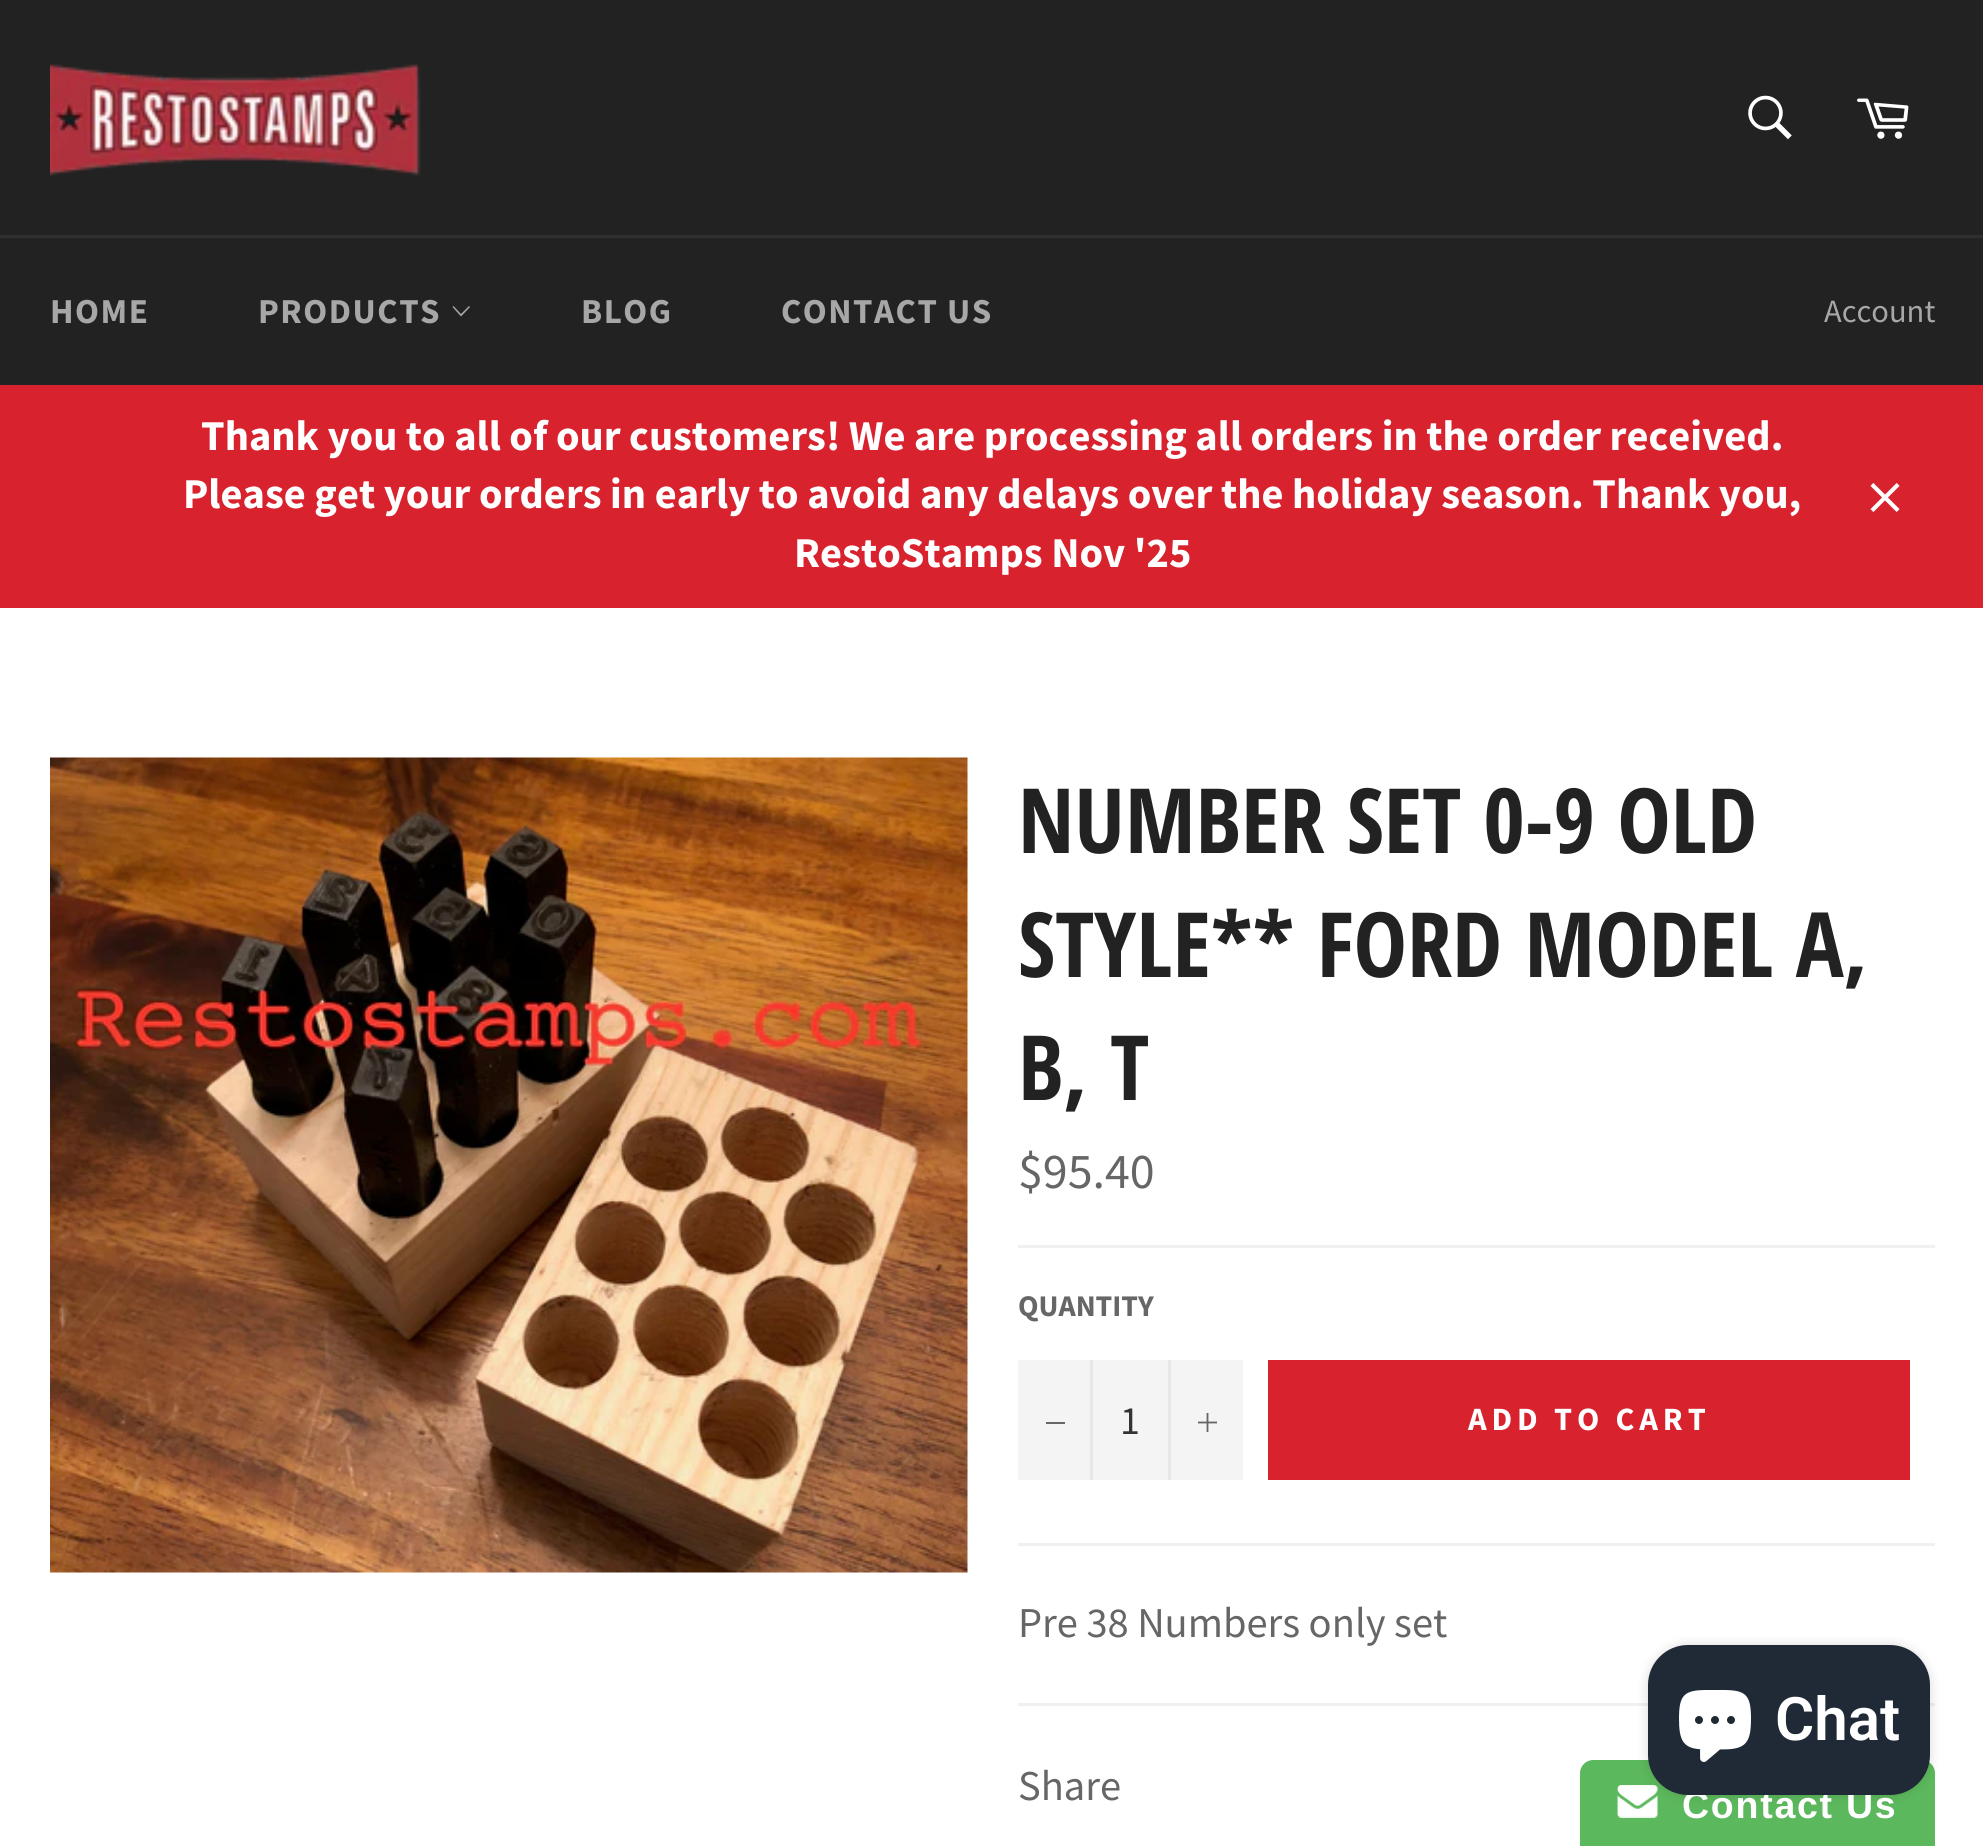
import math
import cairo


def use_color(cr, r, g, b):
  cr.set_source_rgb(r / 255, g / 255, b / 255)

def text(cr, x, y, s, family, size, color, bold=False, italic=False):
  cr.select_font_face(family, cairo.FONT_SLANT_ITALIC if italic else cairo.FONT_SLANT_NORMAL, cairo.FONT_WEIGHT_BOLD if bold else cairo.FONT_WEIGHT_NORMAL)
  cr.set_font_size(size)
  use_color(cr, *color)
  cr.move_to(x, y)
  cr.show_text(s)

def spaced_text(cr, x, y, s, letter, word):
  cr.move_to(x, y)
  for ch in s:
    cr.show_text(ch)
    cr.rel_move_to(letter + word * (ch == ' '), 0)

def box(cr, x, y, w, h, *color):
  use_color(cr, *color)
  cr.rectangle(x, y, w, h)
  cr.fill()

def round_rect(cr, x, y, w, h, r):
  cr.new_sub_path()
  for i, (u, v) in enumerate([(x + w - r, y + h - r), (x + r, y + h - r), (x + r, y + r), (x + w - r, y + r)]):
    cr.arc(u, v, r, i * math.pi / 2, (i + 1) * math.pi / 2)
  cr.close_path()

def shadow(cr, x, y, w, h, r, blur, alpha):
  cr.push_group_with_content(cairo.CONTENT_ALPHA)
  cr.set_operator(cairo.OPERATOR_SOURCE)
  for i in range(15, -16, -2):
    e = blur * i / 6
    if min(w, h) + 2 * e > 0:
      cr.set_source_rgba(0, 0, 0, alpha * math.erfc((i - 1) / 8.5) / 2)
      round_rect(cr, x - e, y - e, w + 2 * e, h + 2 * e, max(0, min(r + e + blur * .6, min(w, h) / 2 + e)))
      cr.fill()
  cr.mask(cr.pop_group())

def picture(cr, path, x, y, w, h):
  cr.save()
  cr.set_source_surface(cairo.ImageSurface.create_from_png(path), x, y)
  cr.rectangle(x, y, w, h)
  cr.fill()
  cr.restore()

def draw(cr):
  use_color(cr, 34, 34, 34)
  cr.paint()
  picture(cr, "img_01.png", 50, 64, 371, 112)
  picture(cr, "img_02.png", 1748, 95, 44, 45)
  picture(cr, "img_03.png", 1857, 98, 52, 41)
  box(cr, 0, 235, 1983, 3, 47, 47, 47)
  use_color(cr, 167, 167, 167)
  cr.new_path()
  cr.move_to(469, 306)
  cr.line_to(470, 307)
  cr.line_to(461, 316.5)
  cr.line_to(452.5, 307)
  cr.line_to(453.5, 306)
  cr.line_to(461, 314)
  cr.close_path()
  cr.fill()
  box(cr, 0, 385, 1983, 223, 216, 35, 47)
  picture(cr, "img_04.png", 1870, 483, 30, 29)
  box(cr, 0, 608, 1983, 1238, 255, 255, 255)
  picture(cr, "img_05.png", 50, 757, 918, 816)
  box(cr, 1018, 1245, 917, 3, 240, 240, 240)
  box(cr, 1018, 1360, 225, 120, 244, 244, 244)
  box(cr, 1090, 1360, 3, 120, 231, 231, 231)
  box(cr, 1046, 1422, 19, 2, 102, 102, 102)
  box(cr, 1168, 1360, 3, 120, 231, 231, 231)
  picture(cr, "img_06.png", 1198, 1413, 20, 20)
  box(cr, 1268, 1360, 642, 120, 216, 35, 47)
  box(cr, 1018, 1543, 917, 3, 240, 240, 240)
  box(cr, 1018, 1703, 917, 3, 240, 240, 240)
  use_color(cr, 92, 184, 92)
  cr.new_path()
  cr.move_to(1593, 1760)
  cr.line_to(1922, 1760)
  cr.curve_to(1929, 1760, 1935, 1766, 1935, 1773)
  cr.line_to(1935, 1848)
  cr.line_to(1580, 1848)
  cr.line_to(1580, 1773)
  cr.curve_to(1580, 1766, 1586, 1760, 1593, 1760)
  cr.close_path()
  cr.fill()
  picture(cr, "img_08.png", 1617, 1785, 41, 33)
  use_color(cr, 0, 0, 0)
  shadow(cr, 1648, 1645, 282, 150, 40, 6, 0.15)
  cr.select_font_face("Source Sans Pro", cairo.FONT_SLANT_NORMAL, cairo.FONT_WEIGHT_BOLD)
  cr.set_font_size(35)
  use_color(cr, 167, 167, 167)
  spaced_text(cr, 50, 323, "HOME", 1.5, 0)
  spaced_text(cr, 258, 323, "PRODUCTS", 1.5, 0)
  spaced_text(cr, 581, 323, "BLOG", 1.5, 0)
  spaced_text(cr, 781, 323, "CONTACT US", 1.5, 0)
  text(cr, 1824, 322, "Account", "Source Sans Pro", 32.5, (167, 167, 167))
  text(cr, 201, 450, "Thank you to all of our customers! We are processing all orders in the order received.", "Source Sans Pro", 42.5, (255, 255, 255), bold=True)
  text(cr, 183, 508, "Please get your orders in early to avoid any delays over the holiday season. Thank you,", "Source Sans Pro", 42.5, (255, 255, 255), bold=True)
  text(cr, 794, 567, "RestoStamps Nov '25", "Source Sans Pro", 42.5, (255, 255, 255), bold=True)
  text(cr, 1018, 853, "NUMBER SET 0-9 OLD", "Open Sans Condensed", 90, (34, 34, 34), bold=True)
  text(cr, 1018, 977, "STYLE** FORD MODEL A,", "Open Sans Condensed", 90, (34, 34, 34), bold=True)
  text(cr, 1018, 1100, "B, T", "Open Sans Condensed", 90, (34, 34, 34), bold=True)
  text(cr, 1018, 1188, "$95.40", "Source Sans Pro", 50, (102, 102, 102))
  text(cr, 1018, 1316, "QUANTITY", "Source Sans Pro", 30, (102, 102, 102), bold=True)
  text(cr, 1120, 1434, "1", "Source Sans Pro", 40, (51, 51, 51))
  cr.select_font_face("Source Sans Pro", cairo.FONT_SLANT_NORMAL, cairo.FONT_WEIGHT_BOLD)
  cr.set_font_size(32.5)
  use_color(cr, 255, 255, 255)
  spaced_text(cr, 1468, 1430, "ADD TO CART", 4.9, 0)
  text(cr, 1018, 1637, "Pre 38 Numbers only set", "Source Sans Pro", 42.5, (102, 102, 102))
  text(cr, 1018, 1800, "Share", "Source Sans Pro", 42.5, (102, 102, 102))
  cr.select_font_face("Liberation Sans", cairo.FONT_SLANT_NORMAL, cairo.FONT_WEIGHT_BOLD)
  cr.set_font_size(37.5)
  use_color(cr, 255, 255, 255)
  spaced_text(cr, 1682, 1818, "Contact Us", 1.75, 0)
  use_color(cr, 32, 42, 54)
  round_rect(cr, 1648, 1645, 282, 150, 40)
  cr.fill()
  text(cr, 1775, 1740, "Chat", "Roboto SemiBold", 60, (255, 255, 255))
  picture(cr, "img_07.png", 1679, 1690, 72, 72)


surface = cairo.ImageSurface(cairo.FORMAT_RGB24, 1983, 1846)
cr = cairo.Context(surface)
options = cairo.FontOptions()
options.set_hint_metrics(cairo.HINT_METRICS_OFF)
options.set_hint_style(cairo.HINT_STYLE_NONE)
cr.set_font_options(options)
cr.set_miter_limit(4)
draw(cr)
surface.write_to_png("out.png")
